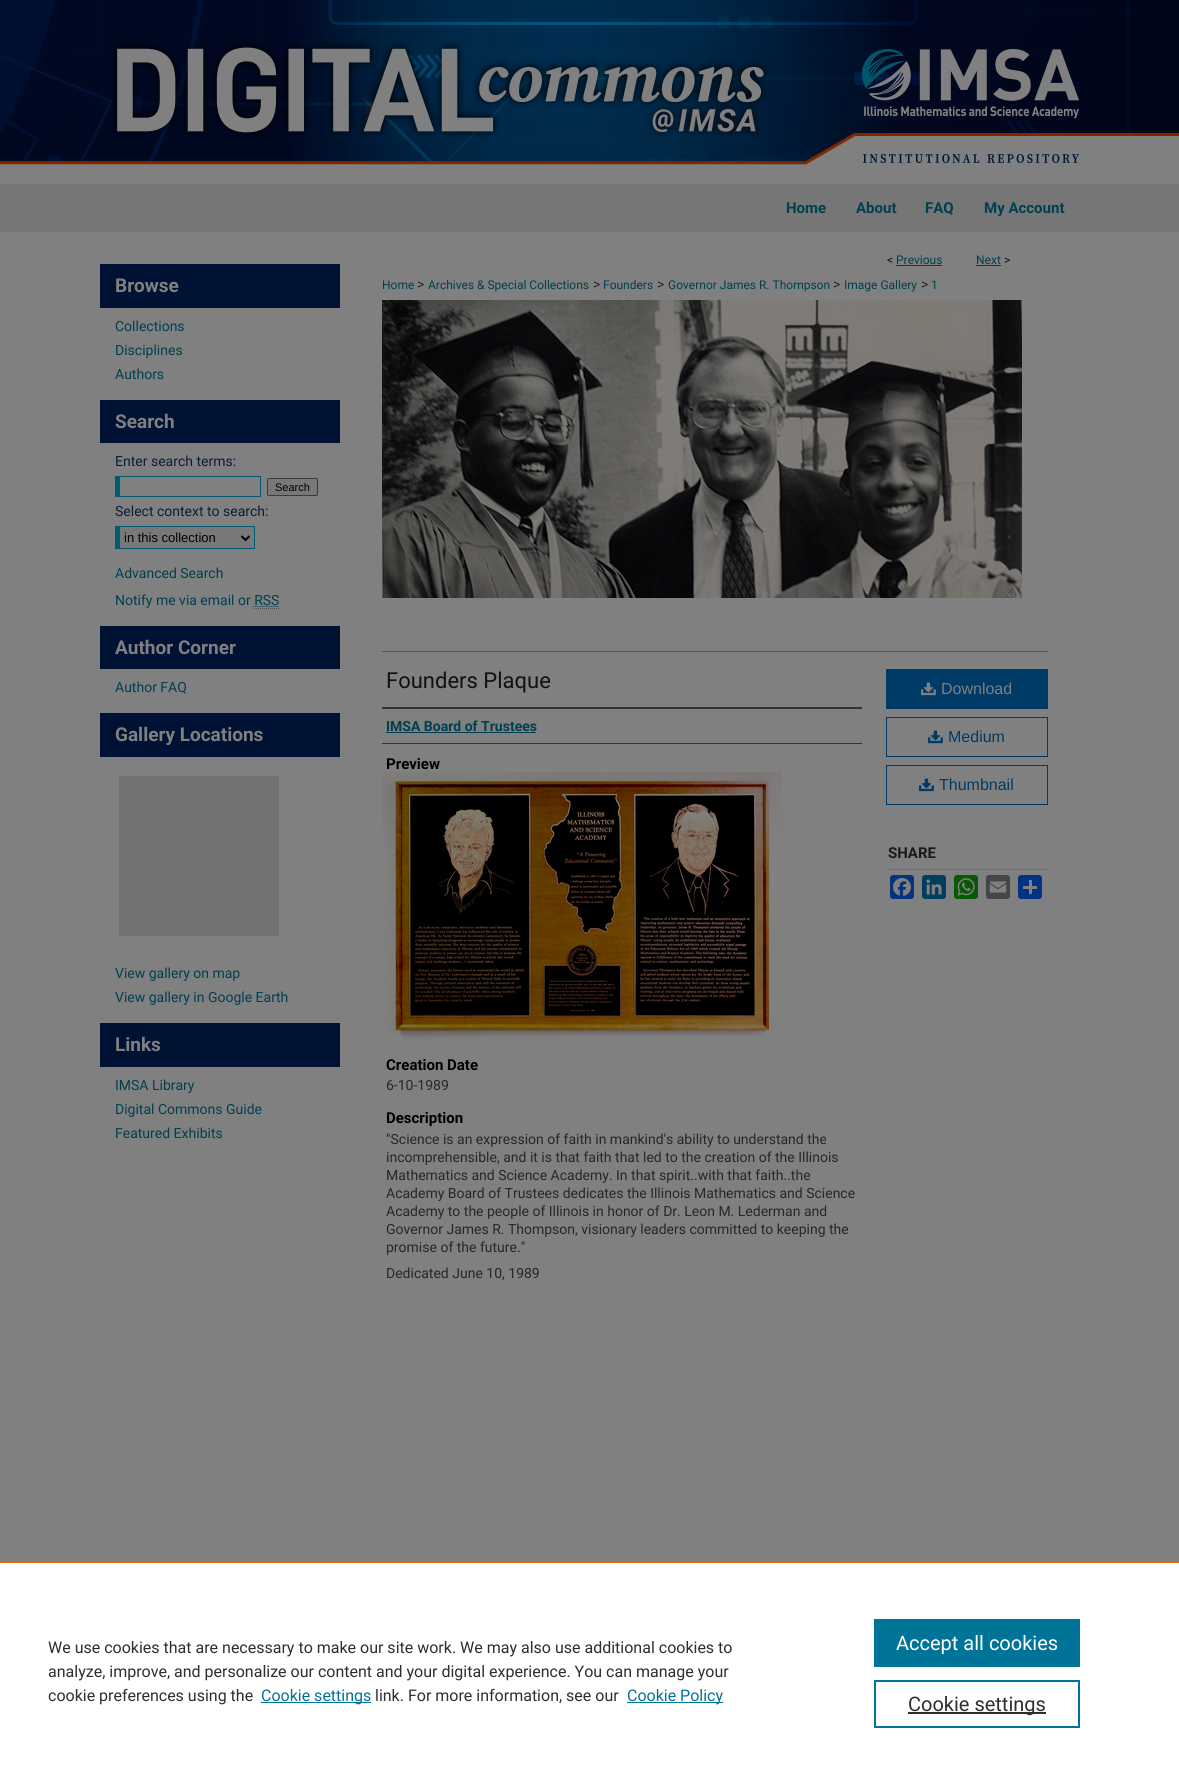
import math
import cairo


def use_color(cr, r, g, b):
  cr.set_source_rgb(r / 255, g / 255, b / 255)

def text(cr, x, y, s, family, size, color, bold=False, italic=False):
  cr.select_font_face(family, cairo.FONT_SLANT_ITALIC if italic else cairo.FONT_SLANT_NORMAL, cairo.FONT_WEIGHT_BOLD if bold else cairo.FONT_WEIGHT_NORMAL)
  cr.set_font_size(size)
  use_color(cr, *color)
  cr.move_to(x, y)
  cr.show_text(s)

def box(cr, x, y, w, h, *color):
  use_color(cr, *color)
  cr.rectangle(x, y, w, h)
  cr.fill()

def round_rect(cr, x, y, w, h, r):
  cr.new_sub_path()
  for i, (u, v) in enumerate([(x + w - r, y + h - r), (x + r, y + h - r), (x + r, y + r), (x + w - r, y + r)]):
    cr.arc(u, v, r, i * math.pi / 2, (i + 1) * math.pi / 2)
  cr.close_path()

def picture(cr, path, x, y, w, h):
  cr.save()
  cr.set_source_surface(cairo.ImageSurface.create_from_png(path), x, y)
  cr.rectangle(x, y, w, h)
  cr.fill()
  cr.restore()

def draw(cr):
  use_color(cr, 128, 128, 128)
  cr.paint()
  picture(cr, "img_01.png", 0, 0, 1179, 232)
  picture(cr, "img_02.png", 110, 40, 969, 123)
  picture(cr, "img_03.png", 861, 49, 218, 70)
  box(cr, 100, 264, 240, 44, 0, 18, 52)
  box(cr, 100, 400, 240, 43, 0, 18, 52)
  box(cr, 115, 476, 146, 1, 0, 90, 112)
  box(cr, 260, 476, 1, 21, 0, 90, 112)
  box(cr, 115, 496, 146, 1, 0, 90, 112)
  box(cr, 115, 476, 5, 21, 0, 90, 112)
  use_color(cr, 120, 120, 120)
  round_rect(cr, 267.5, 478.5, 50, 17, 1.5)
  cr.fill_preserve()
  use_color(cr, 59, 59, 59)
  cr.set_line_width(1)
  cr.stroke()
  box(cr, 120, 527, 134, 21, 120, 120, 120)
  box(cr, 115, 526, 140, 1, 0, 90, 112)
  box(cr, 254, 526, 1, 23, 0, 90, 112)
  box(cr, 115, 548, 140, 1, 0, 90, 112)
  box(cr, 115, 526, 5, 23, 0, 90, 112)
  cr.new_path()
  cr.move_to(241.5, 536)
  cr.line_to(245.5, 540)
  cr.line_to(249.5, 536)
  use_color(cr, 0, 0, 0)
  cr.set_line_width(2)
  cr.stroke()
  cr.new_path()
  cr.move_to(253.5, 606.5)
  cr.line_to(279, 606.5)
  use_color(cr, 0, 63, 80)
  cr.set_line_width(1)
  cr.set_dash([1, 1])
  cr.stroke()
  cr.new_path()
  cr.move_to(254, 608.5)
  cr.line_to(279, 608.5)
  use_color(cr, 77, 77, 77)
  cr.stroke()
  box(cr, 100, 626, 240, 43, 0, 18, 52)
  box(cr, 100, 713, 240, 44, 0, 18, 52)
  box(cr, 119, 776, 160, 160, 115, 114, 112)
  box(cr, 100, 1023, 240, 44, 0, 18, 52)
  box(cr, 896, 265, 46, 1, 0, 63, 80)
  box(cr, 976, 265, 25, 1, 0, 63, 80)
  picture(cr, "img_04.png", 382, 300, 640, 298)
  box(cr, 382, 651, 666, 1, 85, 85, 85)
  box(cr, 382, 707, 480, 2, 51, 51, 51)
  box(cr, 382, 743, 480, 1, 51, 51, 51)
  box(cr, 386, 732, 150, 1, 0, 63, 80)
  picture(cr, "img_05.png", 382, 772, 400, 267)
  box(cr, 886, 669, 162, 40, 0, 58, 102)
  picture(cr, "img_06.png", 921, 682, 15, 14)
  cr.rectangle(886.5, 717.5, 161, 39)
  cr.set_dash([])
  cr.stroke()
  picture(cr, "img_07.png", 928, 730, 15, 14)
  cr.rectangle(886.5, 765.5, 161, 39)
  cr.stroke()
  picture(cr, "img_07.png", 919, 778, 15, 14)
  box(cr, 888, 869, 160, 1, 111, 111, 111)
  use_color(cr, 4, 51, 128)
  round_rect(cr, 890, 875, 24, 24, 3)
  cr.fill()
  picture(cr, "img_08.png", 893, 878, 18, 18)
  use_color(cr, 0, 62, 91)
  round_rect(cr, 922, 875, 24, 24, 3)
  cr.fill()
  picture(cr, "img_09.png", 926, 879, 16, 16)
  use_color(cr, 9, 88, 5)
  round_rect(cr, 954, 875, 24, 24, 3)
  cr.fill()
  picture(cr, "img_10.png", 957, 878, 18, 18)
  use_color(cr, 68, 69, 72)
  round_rect(cr, 986, 875, 24, 24, 3)
  cr.fill()
  picture(cr, "img_11.png", 989, 881, 18, 12)
  use_color(cr, 1, 51, 128)
  round_rect(cr, 1018, 875, 24, 24, 3)
  cr.fill()
  box(cr, 1029, 880, 3, 14, 128, 128, 128)
  box(cr, 1023, 886, 14, 3, 128, 128, 128)
  box(cr, 0, 1563, 1179, 218, 255, 255, 255)
  box(cr, 0, 1561, 1179, 2, 235, 101, 0)
  box(cr, 261, 1702, 110, 1, 0, 115, 152)
  box(cr, 627, 1702, 96, 1, 0, 115, 152)
  box(cr, 874, 1619, 206, 48, 0, 115, 152)
  cr.rectangle(875, 1681, 204, 46)
  cr.set_line_width(2)
  cr.stroke()
  box(cr, 908, 1712, 138, 2, 46, 46, 46)
  text(cr, 786, 213, "Home", "Roboto", 15, (0, 63, 80), bold=True)
  text(cr, 856, 213, "About", "Roboto", 15, (0, 63, 80), bold=True)
  text(cr, 925, 213, "FAQ", "Roboto", 15, (0, 63, 80), bold=True)
  text(cr, 984, 213, "My Account", "Roboto", 15, (0, 63, 80), bold=True)
  text(cr, 115, 292, "Browse", "Roboto", 19, (128, 128, 128), bold=True)
  text(cr, 115, 331, "Collections", "Roboto", 14, (0, 63, 80))
  text(cr, 115, 355, "Disciplines", "Roboto", 14, (0, 63, 80))
  text(cr, 115, 379, "Authors", "Roboto", 14, (0, 63, 80))
  text(cr, 115, 428, "Search", "Roboto", 19, (128, 128, 128), bold=True)
  text(cr, 115, 466, "Enter search terms:", "Roboto", 14, (13, 27, 52))
  text(cr, 275, 491, "Search", "Liberation Sans", 11, (0, 0, 0))
  text(cr, 115, 516, "Select context to search:", "Roboto", 14, (13, 27, 52))
  text(cr, 124, 542, "in this collection", "Liberation Sans", 13, (0, 0, 0))
  text(cr, 115, 578, "Advanced Search", "Roboto", 14, (0, 63, 80))
  text(cr, 115, 605, "Notify me via email or RSS", "Roboto", 14, (0, 63, 80))
  text(cr, 115, 654, "Author Corner", "Roboto", 19, (128, 128, 128), bold=True)
  text(cr, 115, 692, "Author FAQ", "Roboto", 14, (0, 63, 80))
  text(cr, 115, 741, "Gallery Locations", "Roboto", 19, (128, 128, 128), bold=True)
  text(cr, 115, 978, "View gallery on map", "Roboto", 14, (0, 63, 80))
  text(cr, 115, 1002, "View gallery in Google Earth", "Roboto", 14, (0, 63, 80))
  text(cr, 115, 1051, "Links", "Roboto", 19, (128, 128, 128), bold=True)
  text(cr, 115, 1090, "IMSA Library", "Roboto", 14, (0, 63, 80))
  text(cr, 115, 1114, "Digital Commons Guide", "Roboto", 14, (0, 63, 80))
  text(cr, 115, 1138, "Featured Exhibits", "Roboto", 14, (0, 63, 80))
  text(cr, 887, 264, "<", "Roboto", 12, (17, 17, 17))
  text(cr, 896, 264, "Previous", "Roboto", 12, (0, 63, 80))
  text(cr, 976, 264, "Next", "Roboto", 12, (0, 63, 80))
  text(cr, 1004, 264, ">", "Roboto", 12, (17, 17, 17))
  text(cr, 382, 289, "Home", "Roboto", 12, (0, 63, 80))
  text(cr, 417, 289, ">", "Roboto", 14, (39, 39, 39))
  text(cr, 428, 289, "Archives & Special Collections", "Roboto", 12, (0, 63, 80))
  text(cr, 593, 289, ">", "Roboto", 14, (39, 39, 39))
  text(cr, 603, 289, "Founders", "Roboto", 12, (0, 63, 80))
  text(cr, 657, 289, ">", "Roboto", 14, (39, 39, 39))
  text(cr, 668, 289, "Governor James R. Thompson", "Roboto", 12, (0, 63, 80))
  text(cr, 833, 289, ">", "Roboto", 14, (39, 39, 39))
  text(cr, 844, 289, "Image Gallery", "Roboto", 12, (0, 63, 80))
  text(cr, 921, 289, ">", "Roboto", 14, (39, 39, 39))
  text(cr, 931, 289, "1", "Roboto", 12, (0, 63, 80))
  text(cr, 386, 688, "Founders Plaque", "Roboto", 22, (17, 17, 17))
  text(cr, 386, 731, "IMSA Board of Trustees", "Roboto", 14, (0, 63, 80), bold=True)
  text(cr, 386, 769, "Preview", "Roboto", 15, (0, 0, 0), bold=True)
  text(cr, 386, 1070, "Creation Date", "Roboto", 15, (0, 0, 0), bold=True)
  text(cr, 386, 1090, "6-10-1989", "Roboto", 14, (39, 39, 39))
  text(cr, 386, 1123, "Description", "Roboto", 15, (0, 0, 0), bold=True)
  text(cr, 386, 1144, "\"Science is an expression of faith in mankind's ability to understand the", "Roboto", 14, (39, 39, 39))
  text(cr, 386, 1162, "incomprehensible, and it is that faith that led to the creation of the Illinois", "Roboto", 14, (39, 39, 39))
  text(cr, 386, 1180, "Mathematics and Science Academy. In that spirit..with that faith..the", "Roboto", 14, (39, 39, 39))
  text(cr, 386, 1198, "Academy Board of Trustees dedicates the Illinois Mathematics and Science", "Roboto", 14, (39, 39, 39))
  text(cr, 386, 1216, "Academy to the people of Illinois in honor of Dr. Leon M. Lederman and", "Roboto", 14, (39, 39, 39))
  text(cr, 386, 1234, "Governor James R. Thompson, visionary leaders committed to keeping the", "Roboto", 14, (39, 39, 39))
  text(cr, 386, 1252, "promise of the future.\"", "Roboto", 14, (39, 39, 39))
  text(cr, 386, 1278, "Dedicated June 10, 1989", "Roboto", 14, (39, 39, 39))
  text(cr, 941, 694, "Download", "Liberation Sans", 16, (128, 128, 128))
  text(cr, 948, 742, "Medium", "Liberation Sans", 16, (0, 58, 102))
  text(cr, 939, 790, "Thumbnail", "Liberation Sans", 16, (0, 58, 102))
  text(cr, 888, 858, "SHARE", "Roboto", 15, (26, 26, 26), bold=True)
  text(cr, 48, 1653, "We use cookies that are necessary to make our site work. We may also use additional cookies to", "Roboto", 16, (46, 46, 46))
  text(cr, 48, 1677, "analyze, improve, and personalize our content and your digital experience. You can manage your", "Roboto", 16, (46, 46, 46))
  text(cr, 48, 1701, "cookie preferences using the", "Roboto", 16, (46, 46, 46))
  text(cr, 261, 1701, "Cookie settings", "Roboto", 16, (0, 115, 152))
  text(cr, 375, 1701, "link. For more information, see our", "Roboto", 16, (46, 46, 46))
  text(cr, 627, 1701, "Cookie Policy", "Roboto", 16, (0, 115, 152))
  text(cr, 896, 1650, "Accept all cookies", "Roboto", 20, (255, 255, 255))
  text(cr, 908, 1711, "Cookie settings", "Roboto", 20, (46, 46, 46))


surface = cairo.ImageSurface(cairo.FORMAT_RGB24, 1179, 1781)
cr = cairo.Context(surface)
options = cairo.FontOptions()
options.set_hint_metrics(cairo.HINT_METRICS_OFF)
options.set_hint_style(cairo.HINT_STYLE_NONE)
cr.set_font_options(options)
cr.set_miter_limit(4)
draw(cr)
surface.write_to_png("out.png")
